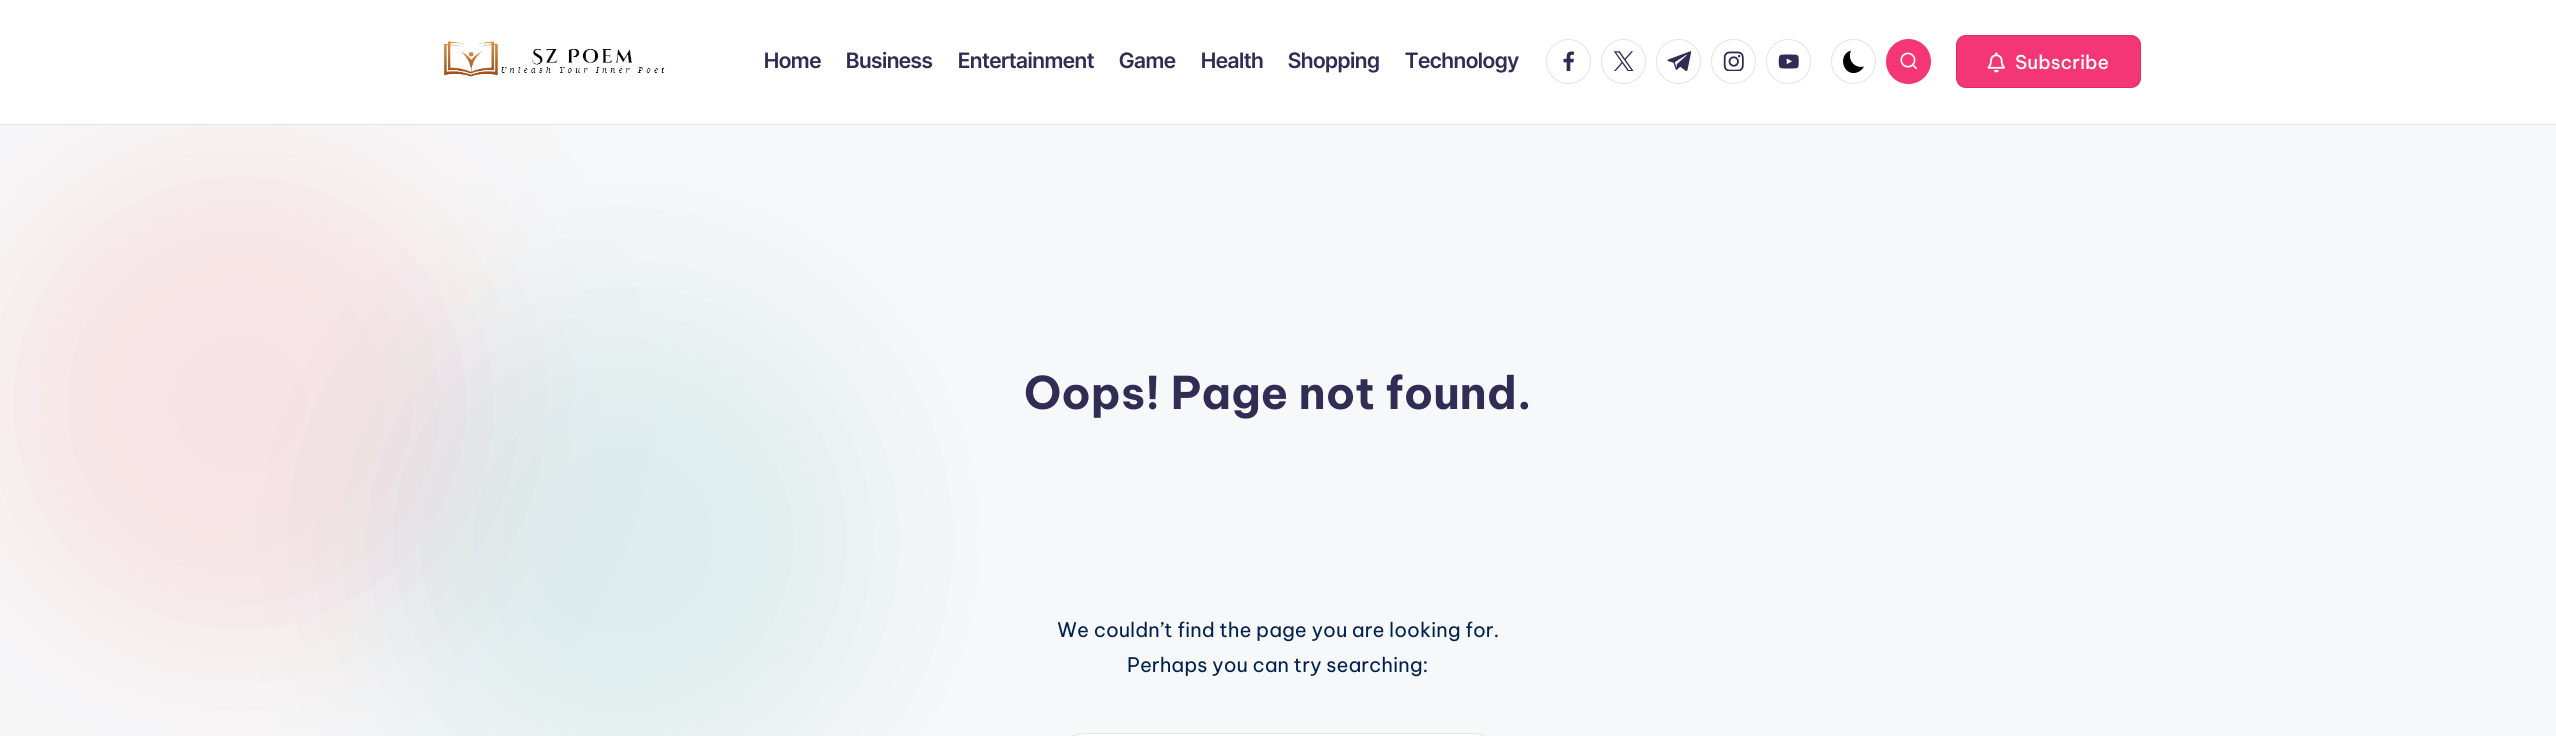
import math
import cairo


def use_color(cr, r, g, b):
  cr.set_source_rgb(r / 255, g / 255, b / 255)

def text(cr, x, y, s, family, size, color, bold=False, italic=False):
  cr.select_font_face(family, cairo.FONT_SLANT_ITALIC if italic else cairo.FONT_SLANT_NORMAL, cairo.FONT_WEIGHT_BOLD if bold else cairo.FONT_WEIGHT_NORMAL)
  cr.set_font_size(size)
  use_color(cr, *color)
  cr.move_to(x, y)
  cr.show_text(s)

def box(cr, x, y, w, h, *color):
  use_color(cr, *color)
  cr.rectangle(x, y, w, h)
  cr.fill()

def round_rect(cr, x, y, w, h, r):
  cr.new_sub_path()
  for i, (u, v) in enumerate([(x + w - r, y + h - r), (x + r, y + h - r), (x + r, y + r), (x + w - r, y + r)]):
    cr.arc(u, v, r, i * math.pi / 2, (i + 1) * math.pi / 2)
  cr.close_path()

def shadow(cr, x, y, w, h, r, blur, alpha):
  cr.push_group_with_content(cairo.CONTENT_ALPHA)
  cr.set_operator(cairo.OPERATOR_SOURCE)
  for i in range(15, -16, -2):
    e = blur * i / 6
    if min(w, h) + 2 * e > 0:
      cr.set_source_rgba(0, 0, 0, alpha * math.erfc((i - 1) / 8.5) / 2)
      round_rect(cr, x - e, y - e, w + 2 * e, h + 2 * e, max(0, min(r + e + blur * .6, min(w, h) / 2 + e)))
      cr.fill()
  cr.mask(cr.pop_group())

def picture(cr, path, x, y, w, h):
  cr.save()
  cr.set_source_surface(cairo.ImageSurface.create_from_png(path), x, y)
  cr.rectangle(x, y, w, h)
  cr.fill()
  cr.restore()

def draw(cr):
  use_color(cr, 247, 248, 249)
  cr.paint()
  use_color(cr, 247, 227, 229)
  shadow(cr, 0, 163, 480, 480, 240, 80, 1)
  use_color(cr, 4, 134, 139)
  shadow(cr, 380, 300, 480, 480, 240, 80, 0.1)
  box(cr, 0, 0, 2556, 124, 255, 255, 255)
  box(cr, 0, 124, 2556, 1, 227, 227, 227)
  picture(cr, "img_01.png", 444, 41, 221, 36)
  cr.arc(1568.5, 61.5, 22, 0, 2 * math.pi)
  cr.set_line_width(1)
  cr.stroke()
  picture(cr, "img_02.png", 1563, 51, 11, 20)
  cr.arc(1623.5, 61.5, 22, 0, 2 * math.pi)
  cr.stroke()
  picture(cr, "img_03.png", 1613, 51, 21, 20)
  cr.arc(1678.5, 61.5, 22, 0, 2 * math.pi)
  cr.stroke()
  picture(cr, "img_04.png", 1667, 51, 25, 20)
  cr.arc(1733.5, 61.5, 22, 0, 2 * math.pi)
  cr.stroke()
  picture(cr, "img_05.png", 1723, 51, 21, 20)
  cr.arc(1788.5, 61.5, 22, 0, 2 * math.pi)
  cr.stroke()
  picture(cr, "img_06.png", 1778, 54, 21, 15)
  cr.arc(1853.5, 61.5, 22, 0, 2 * math.pi)
  cr.stroke()
  use_color(cr, 0, 0, 0)
  cr.new_path()
  cr.move_to(1864, 66.5)
  cr.curve_to(1854.5, 69, 1847, 59.5, 1851, 50.5)
  cr.curve_to(1837, 54.5, 1843, 77, 1857, 72.5)
  cr.curve_to(1860, 71.5, 1862.5, 69.5, 1864, 66.5)
  cr.close_path()
  cr.fill()
  use_color(cr, 244, 54, 118)
  cr.arc(1908.5, 61.5, 22.5, 0, 2 * math.pi)
  cr.fill()
  picture(cr, "img_07.png", 1900, 52, 18, 18)
  round_rect(cr, 1956, 35, 185, 53, 10)
  cr.fill()
  round_rect(cr, 1956.5, 35.5, 184, 52, 9.5)
  cr.set_source_rgba(0, 0, 0, 0.12)
  cr.stroke()
  picture(cr, "img_08.png", 1987, 52, 19, 21)
  use_color(cr, 255, 255, 255)
  round_rect(cr, 1054, 733, 450, 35, 31.5)
  cr.fill()
  round_rect(cr, 1054.5, 733.5, 449, 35, 31)
  cr.set_source_rgba(0.725, 0.725, 0.725, 0.4)
  cr.stroke()
  text(cr, 764, 68, "Home", "Inter Tight SemiBold", 21.25, (48, 45, 85))
  text(cr, 846, 68, "Business", "Inter Tight SemiBold", 21.25, (48, 45, 85))
  text(cr, 958, 68, "Entertainment", "Inter Tight SemiBold", 21.25, (48, 45, 85))
  text(cr, 1119, 68, "Game", "Inter Tight SemiBold", 21.25, (48, 45, 85))
  text(cr, 1201, 68, "Health", "Inter Tight SemiBold", 21.25, (48, 45, 85))
  text(cr, 1288, 68, "Shopping", "Inter Tight SemiBold", 21.25, (48, 45, 85))
  text(cr, 1405, 68, "Technology", "Inter Tight SemiBold", 21.25, (48, 45, 85))
  text(cr, 2015, 69, "Subscribe", "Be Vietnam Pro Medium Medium", 19, (255, 255, 255))
  text(cr, 1024, 409, "Oops! Page not found.", "Be Vietnam Pro", 45, (48, 45, 85), bold=True)
  text(cr, 1057, 637, "We couldn’t find the page you are looking for.", "Be Vietnam Pro", 20, (0, 32, 80))
  text(cr, 1127, 672, "Perhaps you can try searching:", "Be Vietnam Pro", 20, (0, 32, 80))


surface = cairo.ImageSurface(cairo.FORMAT_RGB24, 2556, 736)
cr = cairo.Context(surface)
options = cairo.FontOptions()
options.set_hint_metrics(cairo.HINT_METRICS_OFF)
options.set_hint_style(cairo.HINT_STYLE_NONE)
cr.set_font_options(options)
cr.set_miter_limit(4)
draw(cr)
surface.write_to_png("out.png")
